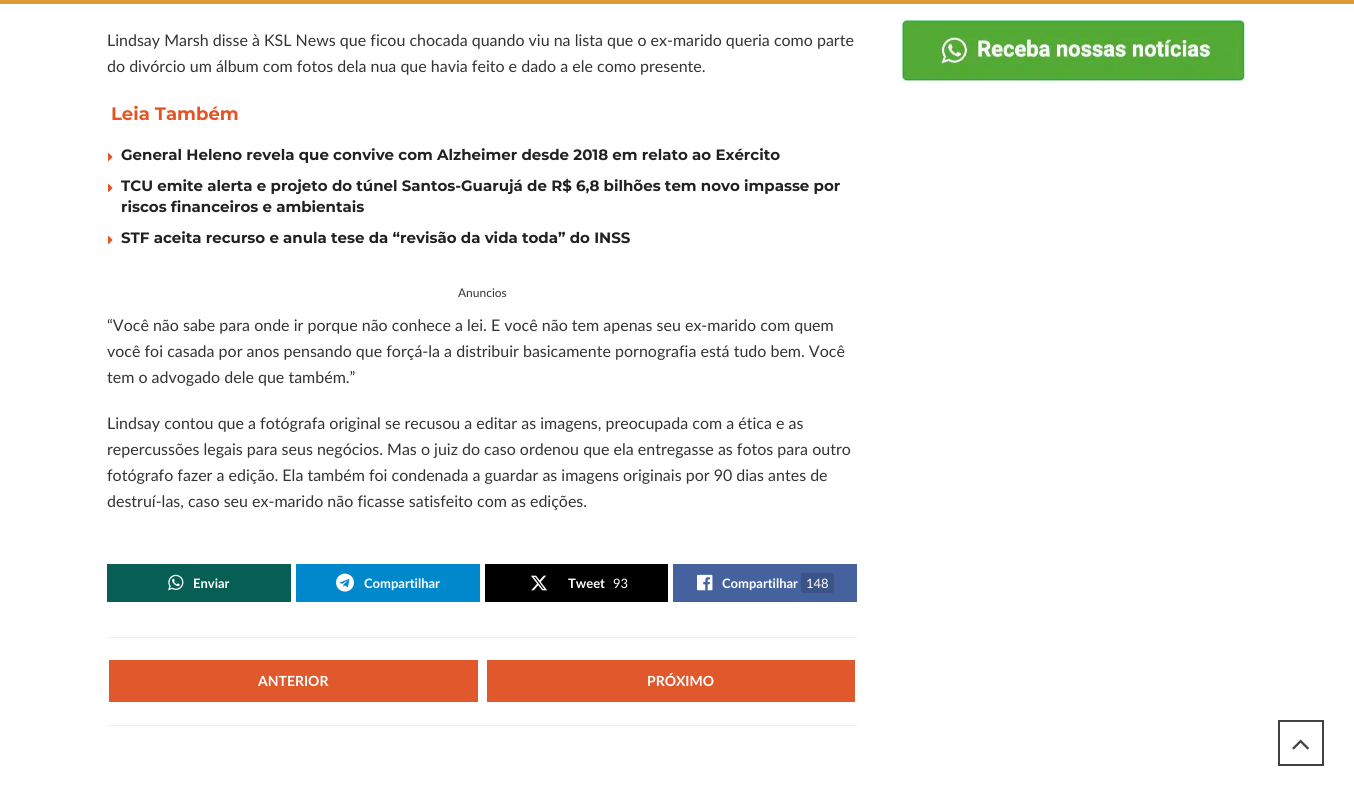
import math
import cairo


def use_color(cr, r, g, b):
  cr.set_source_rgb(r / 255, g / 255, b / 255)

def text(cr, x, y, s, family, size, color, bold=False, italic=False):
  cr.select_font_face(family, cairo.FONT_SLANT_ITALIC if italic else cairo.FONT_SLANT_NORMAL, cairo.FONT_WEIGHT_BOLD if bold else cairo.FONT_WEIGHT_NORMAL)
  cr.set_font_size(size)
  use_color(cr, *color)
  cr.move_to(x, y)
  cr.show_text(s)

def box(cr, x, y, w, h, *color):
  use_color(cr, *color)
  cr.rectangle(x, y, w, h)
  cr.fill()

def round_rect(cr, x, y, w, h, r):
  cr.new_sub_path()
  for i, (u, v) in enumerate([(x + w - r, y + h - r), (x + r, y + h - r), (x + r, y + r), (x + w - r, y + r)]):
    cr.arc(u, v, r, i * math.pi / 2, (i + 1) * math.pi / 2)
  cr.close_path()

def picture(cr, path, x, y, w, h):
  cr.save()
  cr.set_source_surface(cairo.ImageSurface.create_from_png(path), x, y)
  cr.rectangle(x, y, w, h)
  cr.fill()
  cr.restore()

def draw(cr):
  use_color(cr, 255, 255, 255)
  cr.paint()
  box(cr, 0, 0, 1354, 4, 221, 153, 51)
  picture(cr, "img_01.png", 108, 153, 5, 8)
  picture(cr, "img_01.png", 108, 184, 5, 8)
  picture(cr, "img_01.png", 108, 236, 5, 8)
  box(cr, 107, 564, 184, 38, 7, 94, 84)
  picture(cr, "img_02.png", 168, 574, 16, 17)
  box(cr, 296, 564, 184, 38, 0, 136, 204)
  picture(cr, "img_03.png", 336, 573, 18, 19)
  box(cr, 485, 564, 183, 38, 0, 0, 0)
  picture(cr, "img_04.png", 531, 575, 16, 16)
  box(cr, 673, 564, 184, 38, 69, 98, 159)
  picture(cr, "img_05.png", 697, 574, 16, 17)
  use_color(cr, 59, 83, 135)
  round_rect(cr, 801, 573, 33, 20, 2)
  cr.fill()
  box(cr, 107, 637, 750, 1, 238, 238, 238)
  box(cr, 107, 725, 750, 1, 238, 238, 238)
  box(cr, 109, 660, 369, 42, 225, 88, 44)
  box(cr, 487, 660, 368, 42, 225, 88, 44)
  picture(cr, "img_06.png", 902, 20, 345, 62)
  cr.rectangle(1279, 721, 44, 44)
  use_color(cr, 65, 65, 65)
  cr.stroke()
  picture(cr, "img_07.png", 1292, 739, 17, 11)
  text(cr, 107, 46, "Lindsay Marsh disse à KSL News que ficou chocada quando viu na lista que o ex-marido queria como parte", "Lato", 16, (51, 51, 51))
  text(cr, 107, 72, "do divórcio um álbum com fotos dela nua que havia feito e dado a ele como presente.", "Lato", 16, (51, 51, 51))
  text(cr, 111, 120, "Leia Também", "Montserrat", 18, (228, 84, 36), bold=True)
  text(cr, 121, 160, "General Heleno revela que convive com Alzheimer desde 2018 em relato ao Exército", "Montserrat", 15, (33, 33, 33), bold=True)
  text(cr, 121, 191, "TCU emite alerta e projeto do túnel Santos-Guarujá de R$ 6,8 bilhões tem novo impasse por", "Montserrat", 15, (33, 33, 33), bold=True)
  text(cr, 121, 212, "riscos financeiros e ambientais", "Montserrat", 15, (33, 33, 33), bold=True)
  text(cr, 121, 243, "STF aceita recurso e anula tese da “revisão da vida toda” do INSS", "Montserrat", 15, (33, 33, 33), bold=True)
  text(cr, 458, 297, "Anuncios", "Lato", 12, (51, 51, 51))
  text(cr, 107, 331, "“Você não sabe para onde ir porque não conhece a lei. E você não tem apenas seu ex-marido com quem", "Lato", 16, (51, 51, 51))
  text(cr, 107, 357, "você foi casada por anos pensando que forçá-la a distribuir basicamente pornografia está tudo bem. Você", "Lato", 16, (51, 51, 51))
  text(cr, 107, 383, "tem o advogado dele que também.”", "Lato", 16, (51, 51, 51))
  text(cr, 107, 429, "Lindsay contou que a fotógrafa original se recusou a editar as imagens, preocupada com a ética e as", "Lato", 16, (51, 51, 51))
  text(cr, 107, 455, "repercussões legais para seus negócios. Mas o juiz do caso ordenou que ela entregasse as fotos para outro", "Lato", 16, (51, 51, 51))
  text(cr, 107, 481, "fotógrafo fazer a edição. Ela também foi condenada a guardar as imagens originais por 90 dias antes de", "Lato", 16, (51, 51, 51))
  text(cr, 107, 507, "destruí-las, caso seu ex-marido não ficasse satisfeito com as edições.", "Lato", 16, (51, 51, 51))
  text(cr, 193, 588, "Enviar", "Lato", 13, (255, 255, 255), bold=True)
  text(cr, 364, 588, "Compartilhar", "Lato", 13, (255, 255, 255), bold=True)
  text(cr, 568, 588, "Tweet", "Lato", 13, (255, 255, 255), bold=True)
  text(cr, 613, 588, "93", "Lato", 13, (255, 255, 255))
  text(cr, 722, 588, "Compartilhar", "Lato", 13, (255, 255, 255), bold=True)
  text(cr, 806, 588, "148", "Lato", 13, (255, 255, 255))
  text(cr, 258, 686, "ANTERIOR", "Lato", 14, (255, 255, 255), bold=True)
  text(cr, 647, 686, "PRÓXIMO", "Lato", 14, (255, 255, 255), bold=True)


surface = cairo.ImageSurface(cairo.FORMAT_RGB24, 1354, 796)
cr = cairo.Context(surface)
options = cairo.FontOptions()
options.set_hint_metrics(cairo.HINT_METRICS_OFF)
options.set_hint_style(cairo.HINT_STYLE_NONE)
cr.set_font_options(options)
cr.set_miter_limit(4)
draw(cr)
surface.write_to_png("out.png")
